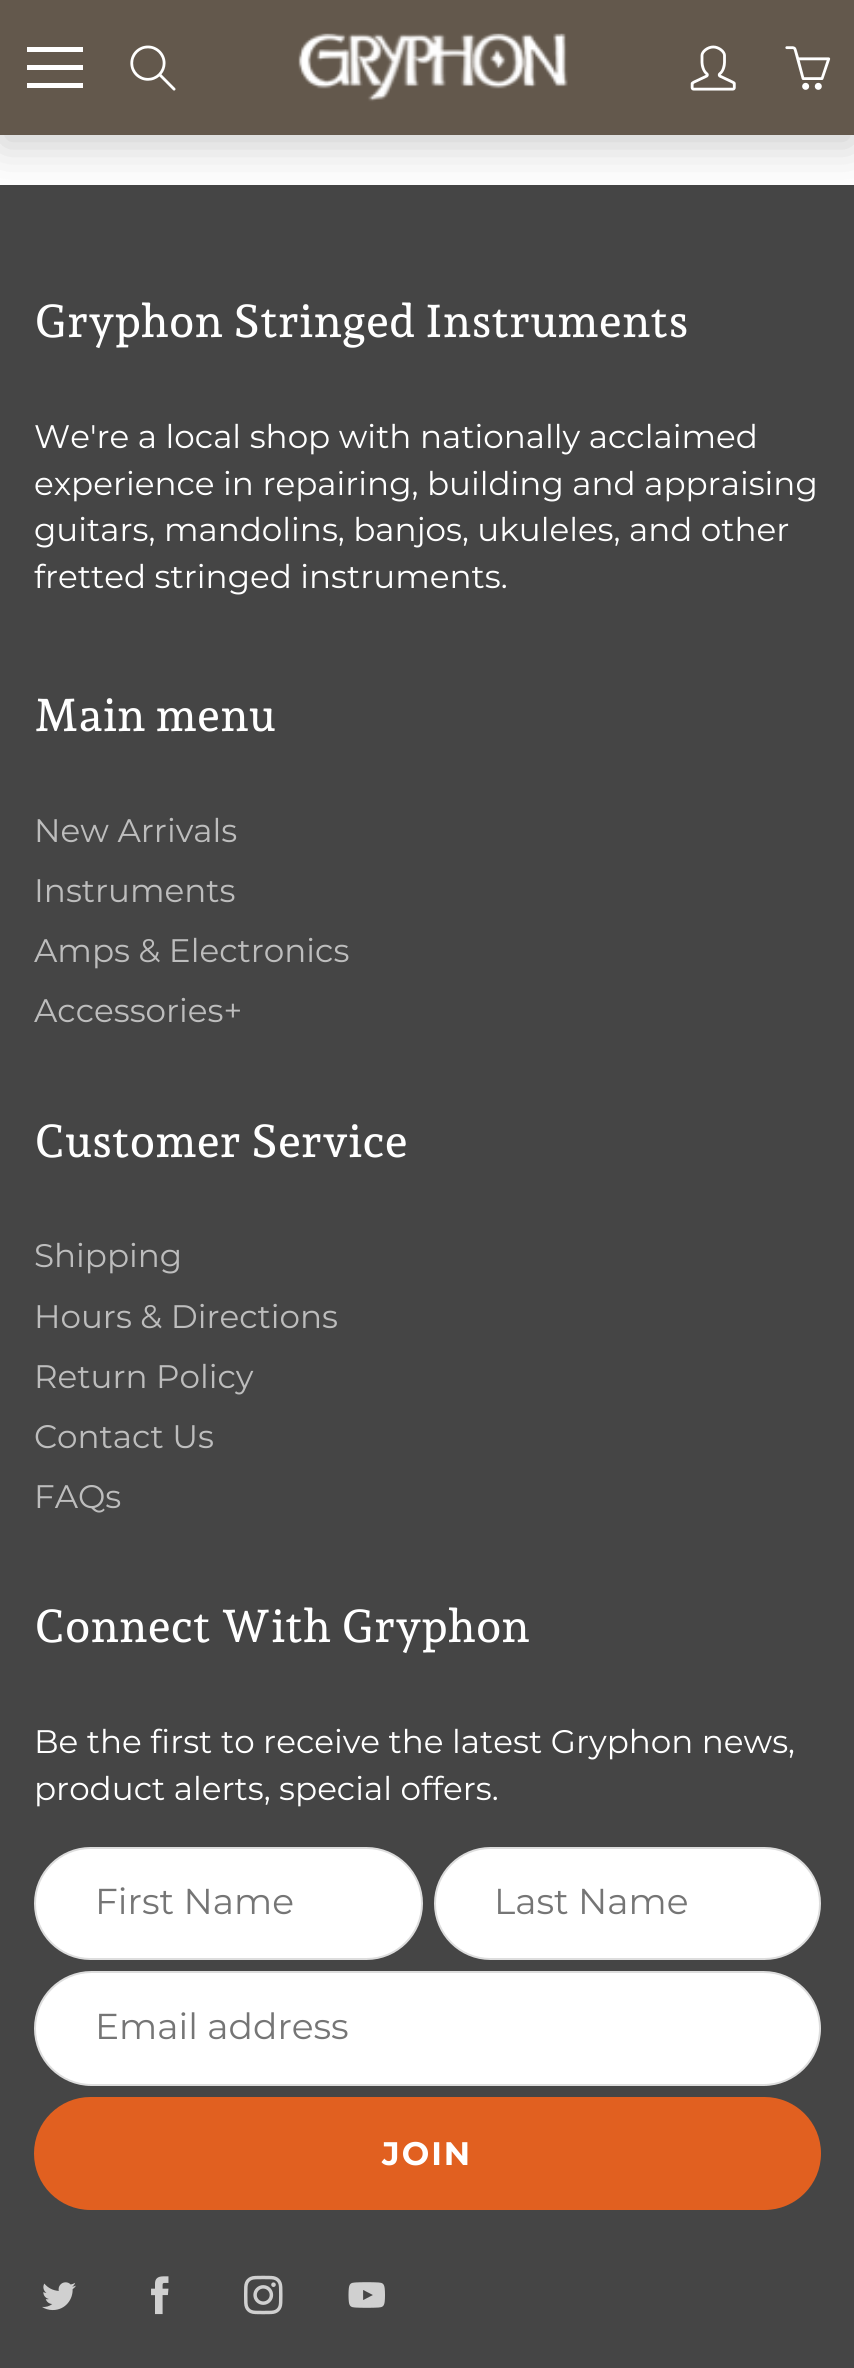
import math
import cairo


def use_color(cr, r, g, b):
  cr.set_source_rgb(r / 255, g / 255, b / 255)

def text(cr, x, y, s, family, size, color, bold=False, italic=False):
  cr.select_font_face(family, cairo.FONT_SLANT_ITALIC if italic else cairo.FONT_SLANT_NORMAL, cairo.FONT_WEIGHT_BOLD if bold else cairo.FONT_WEIGHT_NORMAL)
  cr.set_font_size(size)
  use_color(cr, *color)
  cr.move_to(x, y)
  cr.show_text(s)

def spaced_text(cr, x, y, s, letter, word):
  cr.move_to(x, y)
  for ch in s:
    cr.show_text(ch)
    cr.rel_move_to(letter + word * (ch == ' '), 0)

def box(cr, x, y, w, h, *color):
  use_color(cr, *color)
  cr.rectangle(x, y, w, h)
  cr.fill()

def round_rect(cr, x, y, w, h, r):
  cr.new_sub_path()
  for i, (u, v) in enumerate([(x + w - r, y + h - r), (x + r, y + h - r), (x + r, y + r), (x + w - r, y + r)]):
    cr.arc(u, v, r, i * math.pi / 2, (i + 1) * math.pi / 2)
  cr.close_path()

def shadow(cr, x, y, w, h, r, blur, alpha):
  cr.push_group_with_content(cairo.CONTENT_ALPHA)
  cr.set_operator(cairo.OPERATOR_SOURCE)
  for i in range(15, -16, -2):
    e = blur * i / 6
    if min(w, h) + 2 * e > 0:
      cr.set_source_rgba(0, 0, 0, alpha * math.erfc((i - 1) / 8.5) / 2)
      round_rect(cr, x - e, y - e, w + 2 * e, h + 2 * e, max(0, min(r + e + blur * .6, min(w, h) / 2 + e)))
      cr.fill()
  cr.mask(cr.pop_group())

def picture(cr, path, x, y, w, h):
  cr.save()
  cr.set_source_surface(cairo.ImageSurface.create_from_png(path), x, y)
  cr.rectangle(x, y, w, h)
  cr.fill()
  cr.restore()

def draw(cr):
  use_color(cr, 255, 255, 255)
  cr.paint()
  box(cr, 0, 185, 854, 2183, 69, 69, 69)
  use_color(cr, 0, 0, 0)
  shadow(cr, 0, 11, 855, 135, 0, 22.5, 0.2)
  box(cr, 0, 0, 854, 135, 99, 88, 76)
  box(cr, 27, 65, 56, 5, 255, 255, 255)
  box(cr, 27, 47, 56, 5, 255, 255, 255)
  box(cr, 27, 83, 56, 5, 255, 255, 255)
  picture(cr, "img_01.png", 130, 45, 46, 46)
  picture(cr, "img_02.png", 298, 33, 270, 69)
  picture(cr, "img_03.png", 690, 45, 46, 46)
  picture(cr, "img_04.png", 785, 46, 46, 44)
  round_rect(cr, 35, 1848, 387, 111, 55.5)
  cr.fill_preserve()
  use_color(cr, 221, 221, 221)
  cr.stroke()
  use_color(cr, 255, 255, 255)
  round_rect(cr, 435, 1848, 385, 111, 55.5)
  cr.fill_preserve()
  use_color(cr, 221, 221, 221)
  cr.stroke()
  use_color(cr, 255, 255, 255)
  round_rect(cr, 35, 1972, 785, 113, 56.5)
  cr.fill_preserve()
  use_color(cr, 221, 221, 221)
  cr.stroke()
  use_color(cr, 225, 96, 32)
  round_rect(cr, 34, 2097, 787, 113, 56.5)
  cr.fill()
  picture(cr, "img_05.png", 42, 2282, 34, 29)
  picture(cr, "img_06.png", 151, 2276, 18, 39)
  picture(cr, "img_07.png", 244, 2275, 39, 40)
  picture(cr, "img_08.png", 348, 2282, 37, 26)
  text(cr, 34, 337, "Gryphon Stringed Instruments", "Andada Pro Medium", 45.6, (255, 255, 255))
  text(cr, 34, 448, "We're a local shop with nationally acclaimed", "Montserrat", 32.6, (255, 255, 255))
  text(cr, 34, 495, "experience in repairing, building and appraising", "Montserrat", 32.6, (255, 255, 255))
  text(cr, 34, 541, "guitars, mandolins, banjos, ukuleles, and other", "Montserrat", 32.6, (255, 255, 255))
  text(cr, 34, 588, "fretted stringed instruments.", "Montserrat", 32.6, (255, 255, 255))
  text(cr, 34, 731, "Main menu", "Andada Pro Medium", 45.6, (255, 255, 255))
  text(cr, 34, 842, "New Arrivals", "Montserrat", 32.6, (189, 189, 189))
  text(cr, 34, 902, "Instruments", "Montserrat", 32.6, (189, 189, 189))
  text(cr, 34, 962, "Amps & Electronics", "Montserrat", 32.6, (189, 189, 189))
  text(cr, 34, 1022, "Accessories+", "Montserrat", 32.6, (189, 189, 189))
  text(cr, 34, 1157, "Customer Service", "Andada Pro Medium", 45.6, (255, 255, 255))
  text(cr, 34, 1267, "Shipping", "Montserrat", 32.6, (189, 189, 189))
  text(cr, 34, 1328, "Hours & Directions", "Montserrat", 32.6, (189, 189, 189))
  text(cr, 34, 1388, "Return Policy", "Montserrat", 32.6, (189, 189, 189))
  text(cr, 34, 1448, "Contact Us", "Montserrat", 32.6, (189, 189, 189))
  text(cr, 34, 1508, "FAQs", "Montserrat", 32.6, (189, 189, 189))
  text(cr, 34, 1642, "Connect With Gryphon", "Andada Pro Medium", 45.6, (255, 255, 255))
  text(cr, 34, 1753, "Be the first to receive the latest Gryphon news,", "Montserrat", 32.6, (255, 255, 255))
  text(cr, 34, 1800, "product alerts, special offers.", "Montserrat", 32.6, (255, 255, 255))
  text(cr, 95, 1914, "First Name", "Montserrat", 36, (117, 117, 117))
  text(cr, 494, 1914, "Last Name", "Montserrat", 36, (117, 117, 117))
  text(cr, 95, 2039, "Email address", "Montserrat", 36, (117, 117, 117))
  cr.select_font_face("Montserrat", cairo.FONT_SLANT_NORMAL, cairo.FONT_WEIGHT_BOLD)
  cr.set_font_size(32.6)
  use_color(cr, 255, 255, 255)
  spaced_text(cr, 382, 2165, "JOIN", 2, 0)


surface = cairo.ImageSurface(cairo.FORMAT_RGB24, 854, 2368)
cr = cairo.Context(surface)
options = cairo.FontOptions()
options.set_hint_metrics(cairo.HINT_METRICS_OFF)
options.set_hint_style(cairo.HINT_STYLE_NONE)
cr.set_font_options(options)
cr.set_miter_limit(4)
draw(cr)
surface.write_to_png("out.png")
